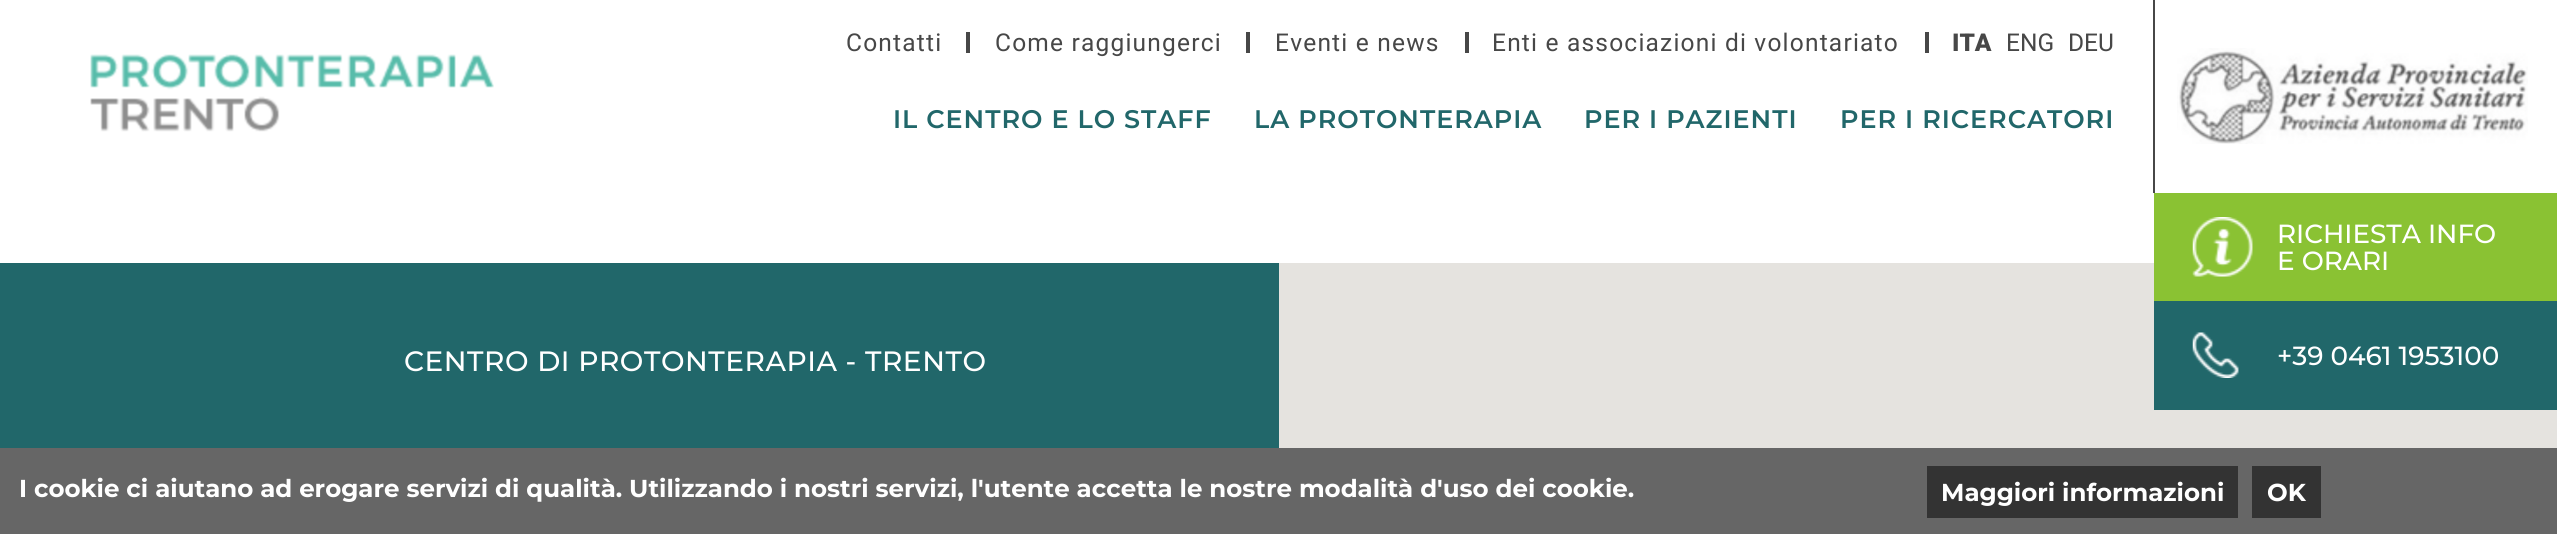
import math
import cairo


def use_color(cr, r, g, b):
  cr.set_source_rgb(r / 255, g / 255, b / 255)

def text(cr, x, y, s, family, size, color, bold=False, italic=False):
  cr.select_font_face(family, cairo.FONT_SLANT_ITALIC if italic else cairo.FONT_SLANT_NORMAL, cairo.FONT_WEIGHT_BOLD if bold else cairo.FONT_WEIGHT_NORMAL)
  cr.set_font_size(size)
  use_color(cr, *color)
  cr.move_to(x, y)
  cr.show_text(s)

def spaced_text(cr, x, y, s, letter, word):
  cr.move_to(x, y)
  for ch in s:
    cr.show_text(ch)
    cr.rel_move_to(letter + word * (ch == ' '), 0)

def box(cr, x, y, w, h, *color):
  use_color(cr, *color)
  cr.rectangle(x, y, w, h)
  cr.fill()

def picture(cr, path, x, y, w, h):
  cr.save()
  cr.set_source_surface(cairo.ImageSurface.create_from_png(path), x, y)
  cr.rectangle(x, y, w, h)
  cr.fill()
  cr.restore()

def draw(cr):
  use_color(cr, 255, 255, 255)
  cr.paint()
  box(cr, 0, 263, 1279, 185, 33, 103, 106)
  box(cr, 1279, 263, 1278, 185, 229, 227, 223)
  picture(cr, "img_01.png", 90, 54, 404, 78)
  box(cr, 2153, 0, 2, 193, 71, 71, 71)
  box(cr, 966, 32, 4, 21, 71, 71, 71)
  box(cr, 1246, 32, 4, 21, 71, 71, 71)
  box(cr, 1465, 32, 4, 21, 71, 71, 71)
  box(cr, 1925, 32, 4, 21, 71, 71, 71)
  picture(cr, "img_02.png", 2177, 48, 351, 96)
  box(cr, 2154, 193, 403, 108, 138, 194, 51)
  picture(cr, "img_03.png", 2192, 217, 61, 60)
  box(cr, 2154, 301, 403, 109, 33, 103, 106)
  picture(cr, "img_04.png", 2192, 332, 47, 46)
  box(cr, 0, 448, 2557, 86, 102, 102, 102)
  box(cr, 1927, 466, 311, 52, 51, 51, 51)
  box(cr, 2252, 466, 69, 52, 51, 51, 51)
  cr.select_font_face("Montserrat Medium")
  cr.set_font_size(28)
  use_color(cr, 255, 255, 255)
  spaced_text(cr, 404, 371, "CENTRO DI PROTONTERAPIA - TRENTO", 0.55, 0)
  cr.select_font_face("Roboto")
  cr.set_font_size(24.5)
  use_color(cr, 71, 71, 71)
  spaced_text(cr, 846, 51, "Contatti", 1.2, 0)
  spaced_text(cr, 995, 51, "Come raggiungerci", 1.2, 0)
  spaced_text(cr, 1275, 51, "Eventi e news", 1.2, 0)
  spaced_text(cr, 1492, 51, "Enti e associazioni di volontariato", 1.2, 0)
  text(cr, 1952, 51, "ITA", "Roboto Black", 24.5, (71, 71, 71))
  text(cr, 2006, 51, "ENG", "Roboto", 24.5, (71, 71, 71))
  text(cr, 2068, 51, "DEU", "Roboto", 24.5, (71, 71, 71))
  cr.select_font_face("Montserrat SemiBold")
  cr.set_font_size(25.4)
  use_color(cr, 33, 103, 106)
  spaced_text(cr, 893, 128, "IL CENTRO E LO STAFF", 1, 0)
  spaced_text(cr, 1254, 128, "LA PROTONTERAPIA", 1, 0)
  spaced_text(cr, 1584, 128, "PER I PAZIENTI", 1, 0)
  spaced_text(cr, 1840, 128, "PER I RICERCATORI", 1, 0)
  text(cr, 2277, 243, "RICHIESTA INFO", "Montserrat Medium", 26.25, (255, 255, 255))
  text(cr, 2277, 270, "E ORARI", "Montserrat Medium", 26.25, (255, 255, 255))
  text(cr, 2277, 365, "+39 0461 1953100", "Montserrat Medium", 26.25, (255, 255, 255))
  text(cr, 19, 497, "I cookie ci aiutano ad erogare servizi di qualità. Utilizzando i nostri servizi, l'utente accetta le nostre modalità d'uso dei cookie.", "Montserrat", 24.5, (255, 255, 255), bold=True)
  text(cr, 1941, 501, "Maggiori informazioni", "Montserrat", 24.5, (255, 255, 255), bold=True)
  text(cr, 2267, 501, "OK", "Montserrat", 24.5, (255, 255, 255), bold=True)


surface = cairo.ImageSurface(cairo.FORMAT_RGB24, 2557, 534)
cr = cairo.Context(surface)
options = cairo.FontOptions()
options.set_hint_metrics(cairo.HINT_METRICS_OFF)
options.set_hint_style(cairo.HINT_STYLE_NONE)
cr.set_font_options(options)
cr.set_miter_limit(4)
draw(cr)
surface.write_to_png("out.png")
